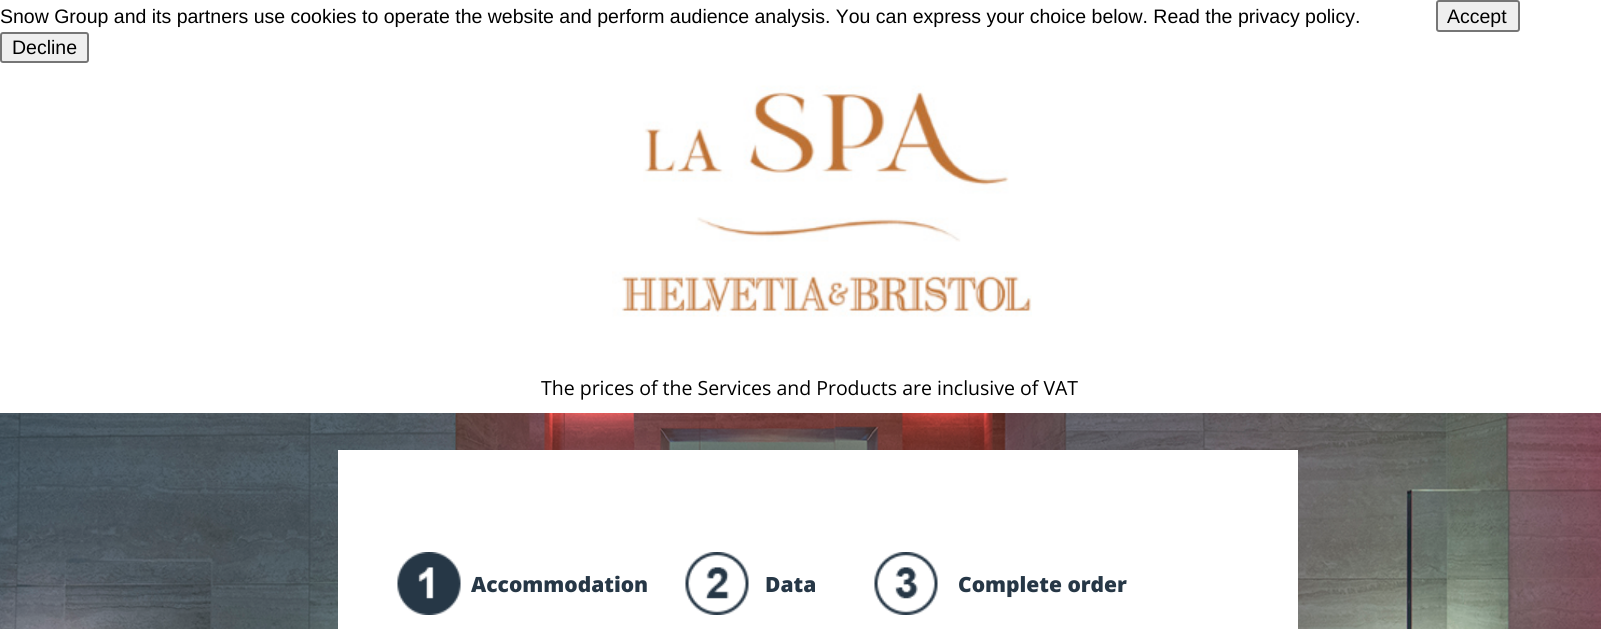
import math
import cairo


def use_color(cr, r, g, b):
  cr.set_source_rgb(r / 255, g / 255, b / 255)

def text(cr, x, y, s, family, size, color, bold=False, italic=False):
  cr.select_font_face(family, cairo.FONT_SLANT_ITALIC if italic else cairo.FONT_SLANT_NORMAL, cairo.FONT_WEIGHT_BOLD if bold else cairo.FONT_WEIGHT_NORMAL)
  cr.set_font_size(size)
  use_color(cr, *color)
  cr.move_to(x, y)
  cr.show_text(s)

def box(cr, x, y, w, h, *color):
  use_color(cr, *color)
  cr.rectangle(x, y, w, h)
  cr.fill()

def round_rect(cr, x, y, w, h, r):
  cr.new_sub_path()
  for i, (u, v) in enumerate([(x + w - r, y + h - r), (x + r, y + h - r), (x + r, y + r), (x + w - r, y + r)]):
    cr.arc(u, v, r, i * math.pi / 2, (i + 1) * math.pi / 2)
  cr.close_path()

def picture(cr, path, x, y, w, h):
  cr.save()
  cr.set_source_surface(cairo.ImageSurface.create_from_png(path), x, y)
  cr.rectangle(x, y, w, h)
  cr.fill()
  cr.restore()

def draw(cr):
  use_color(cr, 255, 255, 255)
  cr.paint()
  picture(cr, "img_01.png", 0, 413, 1601, 216)
  use_color(cr, 239, 239, 239)
  round_rect(cr, 1437, 1, 82, 30, 2)
  cr.fill_preserve()
  use_color(cr, 118, 118, 118)
  cr.stroke()
  use_color(cr, 239, 239, 239)
  round_rect(cr, 1, 33, 87, 29, 2)
  cr.fill_preserve()
  use_color(cr, 118, 118, 118)
  cr.stroke()
  picture(cr, "img_02.png", 643, 85, 366, 157)
  picture(cr, "img_03.png", 612, 271, 420, 46)
  box(cr, 338, 450, 960, 179, 255, 255, 255)
  picture(cr, "img_04.png", 397, 552, 64, 63)
  picture(cr, "img_05.png", 685, 552, 64, 63)
  picture(cr, "img_06.png", 874, 552, 64, 63)
  text(cr, 0, 23, "Snow Group and its partners use cookies to operate the website and perform audience analysis. You can express your choice below. Read the privacy policy.", "Liberation Sans", 19.5, (0, 0, 0))
  text(cr, 1447, 23, "Accept", "Liberation Sans", 19.5, (0, 0, 0))
  text(cr, 12, 54, "Decline", "Liberation Sans", 19.5, (0, 0, 0))
  text(cr, 541, 395, "The prices of the Services and Products are inclusive of VAT", "Open Sans", 19.5, (0, 0, 0))
  text(cr, 471, 592, "Accommodation", "Open Sans ExtraBold", 21, (38, 55, 70))
  text(cr, 765, 592, "Data", "Open Sans ExtraBold", 21, (38, 55, 70))
  text(cr, 958, 592, "Complete order", "Open Sans ExtraBold", 21, (38, 55, 70))


surface = cairo.ImageSurface(cairo.FORMAT_RGB24, 1601, 629)
cr = cairo.Context(surface)
options = cairo.FontOptions()
options.set_hint_metrics(cairo.HINT_METRICS_OFF)
options.set_hint_style(cairo.HINT_STYLE_NONE)
cr.set_font_options(options)
cr.set_miter_limit(4)
draw(cr)
surface.write_to_png("out.png")
